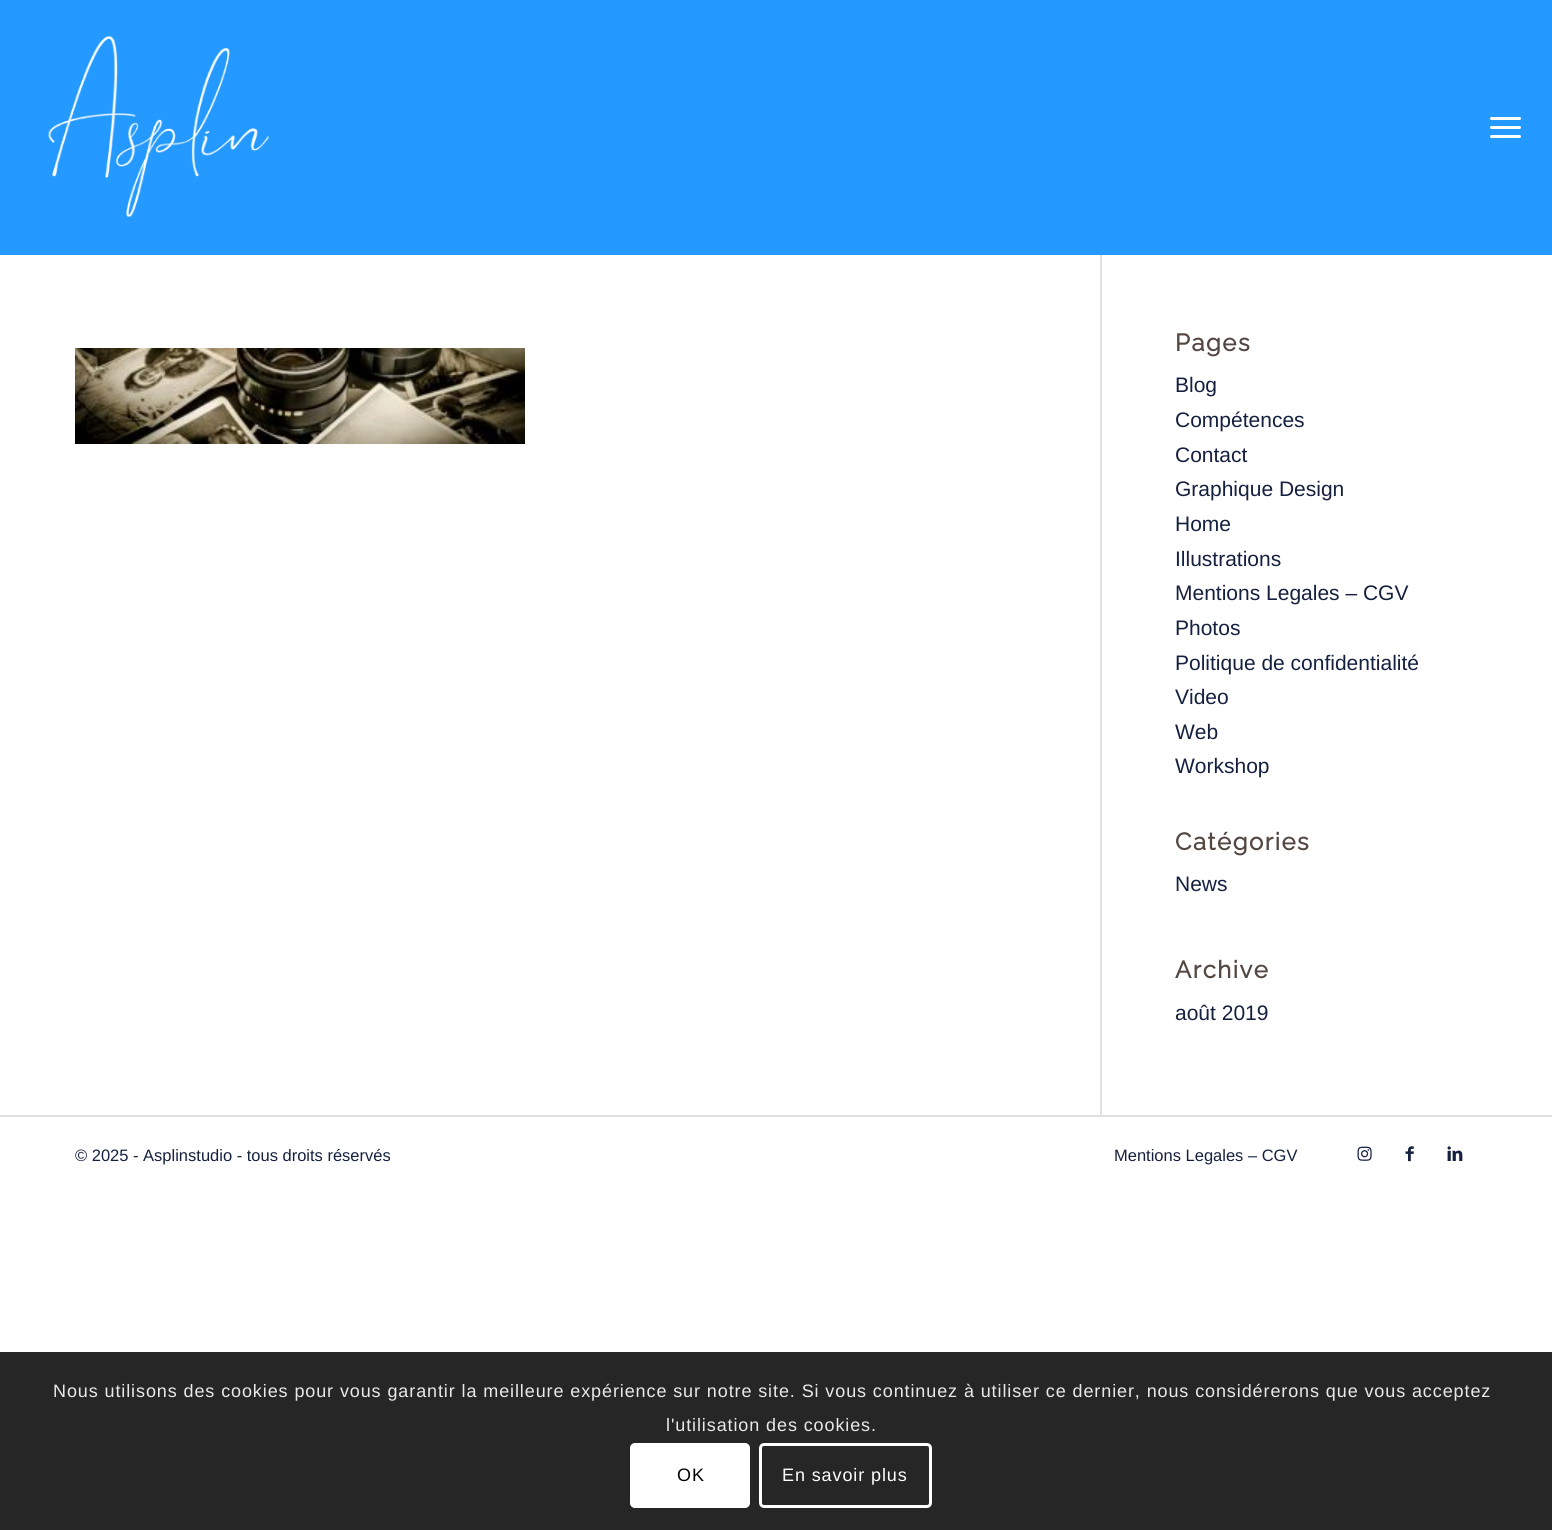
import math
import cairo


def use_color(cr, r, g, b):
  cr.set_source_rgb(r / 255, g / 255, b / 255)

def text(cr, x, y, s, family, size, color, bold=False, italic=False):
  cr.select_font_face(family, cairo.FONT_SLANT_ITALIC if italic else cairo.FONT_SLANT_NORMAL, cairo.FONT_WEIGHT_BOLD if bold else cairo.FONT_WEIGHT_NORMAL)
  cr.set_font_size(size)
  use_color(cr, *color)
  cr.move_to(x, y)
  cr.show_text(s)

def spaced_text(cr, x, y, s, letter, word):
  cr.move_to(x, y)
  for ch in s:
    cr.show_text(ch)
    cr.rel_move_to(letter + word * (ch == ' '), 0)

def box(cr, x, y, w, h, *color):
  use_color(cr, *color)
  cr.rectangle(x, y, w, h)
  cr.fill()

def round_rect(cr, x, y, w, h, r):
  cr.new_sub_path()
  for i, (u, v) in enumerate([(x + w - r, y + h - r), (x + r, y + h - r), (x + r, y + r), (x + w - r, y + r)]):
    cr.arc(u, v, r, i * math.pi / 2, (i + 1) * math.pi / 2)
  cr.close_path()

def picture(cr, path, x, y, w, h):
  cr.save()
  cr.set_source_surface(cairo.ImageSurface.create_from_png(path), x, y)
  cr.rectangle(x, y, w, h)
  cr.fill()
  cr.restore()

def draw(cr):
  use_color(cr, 255, 255, 255)
  cr.paint()
  box(cr, 0, 0, 1552, 255, 36, 153, 255)
  picture(cr, "img_01.png", 48, 36, 221, 181)
  use_color(cr, 255, 255, 255)
  round_rect(cr, 1490, 126, 31, 3, 1.5)
  cr.fill()
  round_rect(cr, 1490, 117, 31, 3, 1.5)
  cr.fill()
  round_rect(cr, 1490, 135, 31, 3, 1.5)
  cr.fill()
  picture(cr, "img_02.png", 75, 348, 450, 96)
  box(cr, 1100, 255, 2, 861, 225, 225, 225)
  box(cr, 0, 1115, 1552, 2, 225, 225, 225)
  picture(cr, "img_03.png", 1357, 1146, 15, 15)
  picture(cr, "img_04.png", 1405, 1146, 9, 16)
  picture(cr, "img_05.png", 1447, 1146, 16, 15)
  box(cr, 0, 1352, 1552, 178, 38, 38, 38)
  use_color(cr, 255, 255, 255)
  round_rect(cr, 630, 1443, 120, 65, 5)
  cr.fill()
  round_rect(cr, 760.5, 1444.5, 170, 62, 3.5)
  cr.set_line_width(3)
  cr.stroke()
  cr.select_font_face("Raleway", cairo.FONT_SLANT_NORMAL, cairo.FONT_WEIGHT_BOLD)
  cr.set_font_size(24)
  use_color(cr, 84, 71, 65)
  spaced_text(cr, 1175, 351, "Pages", 1.5, 0)
  text(cr, 1175, 392, "Blog", "Liberation Sans", 21, (21, 32, 63))
  text(cr, 1175, 427, "Compétences", "Liberation Sans", 21, (21, 32, 63))
  text(cr, 1175, 462, "Contact", "Liberation Sans", 21, (21, 32, 63))
  text(cr, 1175, 496, "Graphique Design", "Liberation Sans", 21, (21, 32, 63))
  text(cr, 1175, 531, "Home", "Liberation Sans", 21, (21, 32, 63))
  text(cr, 1175, 566, "Illustrations", "Liberation Sans", 21, (21, 32, 63))
  text(cr, 1175, 600, "Mentions Legales – CGV", "Liberation Sans", 21, (21, 32, 63))
  text(cr, 1175, 635, "Photos", "Liberation Sans", 21, (21, 32, 63))
  text(cr, 1175, 670, "Politique de confidentialité", "Liberation Sans", 21, (21, 32, 63))
  text(cr, 1175, 704, "Video", "Liberation Sans", 21, (21, 32, 63))
  text(cr, 1175, 739, "Web", "Liberation Sans", 21, (21, 32, 63))
  text(cr, 1175, 773, "Workshop", "Liberation Sans", 21, (21, 32, 63))
  cr.select_font_face("Raleway", cairo.FONT_SLANT_NORMAL, cairo.FONT_WEIGHT_BOLD)
  cr.set_font_size(24)
  use_color(cr, 84, 71, 65)
  spaced_text(cr, 1175, 850, "Catégories", 1.5, 0)
  text(cr, 1175, 891, "News", "Liberation Sans", 21, (21, 32, 63))
  cr.select_font_face("Raleway", cairo.FONT_SLANT_NORMAL, cairo.FONT_WEIGHT_BOLD)
  cr.set_font_size(24)
  use_color(cr, 84, 71, 65)
  spaced_text(cr, 1175, 978, "Archive", 1.5, 0)
  text(cr, 1175, 1020, "août 2019", "Liberation Sans", 21, (21, 32, 63))
  text(cr, 75, 1161, "© 2025 - Asplinstudio - tous droits réservés", "Liberation Sans", 16.5, (21, 32, 63))
  text(cr, 1114, 1161, "Mentions Legales – CGV", "Liberation Sans", 16.5, (21, 32, 63))
  cr.set_font_size(18)
  use_color(cr, 233, 233, 233)
  spaced_text(cr, 53, 1397, "Nous utilisons des cookies pour vous garantir la meilleure expérience sur notre site. Si vous continuez à utiliser ce dernier, nous considérerons que vous acceptez", 0.9, 0)
  spaced_text(cr, 666, 1431, "l'utilisation des cookies.", 0.9, 0)
  use_color(cr, 0, 0, 0)
  spaced_text(cr, 677, 1481, "OK", 0.9, 0)
  use_color(cr, 255, 255, 255)
  spaced_text(cr, 782, 1481, "En savoir plus", 0.9, 0)


surface = cairo.ImageSurface(cairo.FORMAT_RGB24, 1552, 1530)
cr = cairo.Context(surface)
options = cairo.FontOptions()
options.set_hint_metrics(cairo.HINT_METRICS_OFF)
options.set_hint_style(cairo.HINT_STYLE_NONE)
cr.set_font_options(options)
cr.set_miter_limit(4)
draw(cr)
surface.write_to_png("out.png")
